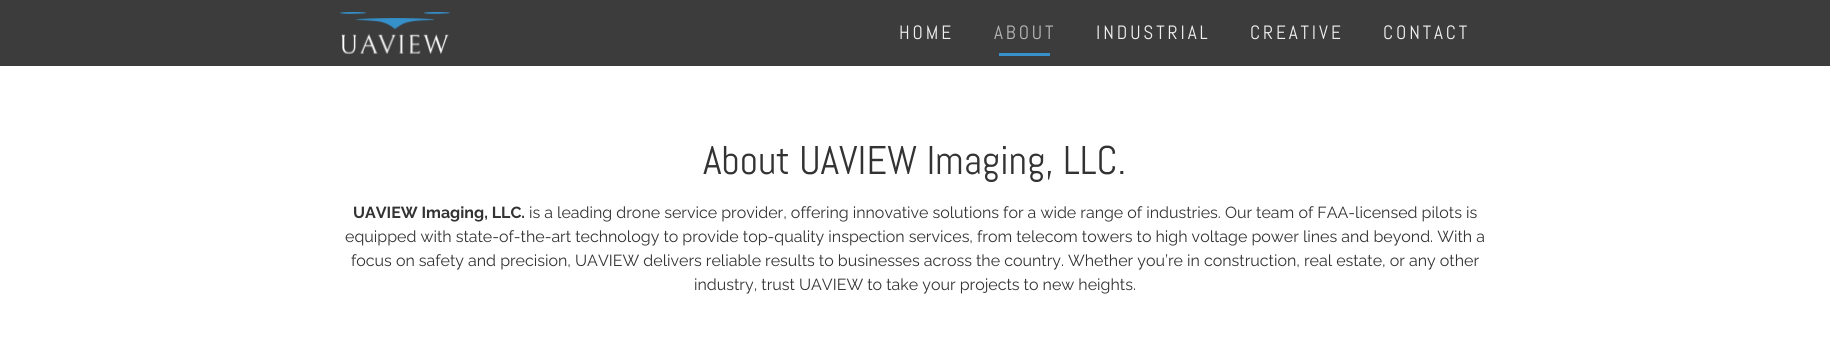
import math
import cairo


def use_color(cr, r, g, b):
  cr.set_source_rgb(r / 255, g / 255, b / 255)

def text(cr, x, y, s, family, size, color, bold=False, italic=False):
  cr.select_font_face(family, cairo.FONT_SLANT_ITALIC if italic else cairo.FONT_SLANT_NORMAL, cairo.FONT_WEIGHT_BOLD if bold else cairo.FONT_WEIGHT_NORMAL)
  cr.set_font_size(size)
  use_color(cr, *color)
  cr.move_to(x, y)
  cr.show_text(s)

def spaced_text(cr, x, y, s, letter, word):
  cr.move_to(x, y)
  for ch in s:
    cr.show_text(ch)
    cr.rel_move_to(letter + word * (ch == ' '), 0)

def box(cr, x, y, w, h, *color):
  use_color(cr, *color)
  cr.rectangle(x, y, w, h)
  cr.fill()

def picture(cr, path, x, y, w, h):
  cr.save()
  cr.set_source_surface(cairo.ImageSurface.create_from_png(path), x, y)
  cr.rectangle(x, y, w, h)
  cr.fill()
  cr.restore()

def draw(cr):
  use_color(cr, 255, 255, 255)
  cr.paint()
  box(cr, 0, 0, 1830, 66, 60, 60, 60)
  picture(cr, "img_01.png", 340, 12, 110, 42)
  box(cr, 999, 53, 51, 3, 54, 144, 202)
  cr.select_font_face("Abel")
  cr.set_font_size(19.25)
  use_color(cr, 240, 240, 240)
  spaced_text(cr, 899, 39, "HOME", 2.9, 0)
  use_color(cr, 182, 182, 182)
  spaced_text(cr, 994, 39, "ABOUT", 2.9, 0)
  use_color(cr, 240, 240, 240)
  spaced_text(cr, 1096, 39, "INDUSTRIAL", 2.9, 0)
  spaced_text(cr, 1250, 39, "CREATIVE", 2.9, 0)
  spaced_text(cr, 1383, 39, "CONTACT", 2.9, 0)
  text(cr, 703, 174, "About UAVIEW Imaging, LLC.", "Abel", 40, (51, 51, 51))
  text(cr, 353, 218, "UAVIEW Imaging, LLC.", "Raleway", 16, (51, 51, 51), bold=True)
  text(cr, 529, 218, "is a leading drone service provider, offering innovative solutions for a wide range of industries. Our team of FAA-licensed pilots is", "Raleway", 16, (51, 51, 51))
  text(cr, 345, 242, "equipped with state-of-the-art technology to provide top-quality inspection services, from telecom towers to high voltage power lines and beyond. With a", "Raleway", 16, (51, 51, 51))
  text(cr, 351, 266, "focus on safety and precision, UAVIEW delivers reliable results to businesses across the country. Whether you’re in construction, real estate, or any other", "Raleway", 16, (51, 51, 51))
  text(cr, 694, 290, "industry, trust UAVIEW to take your projects to new heights.", "Raleway", 16, (51, 51, 51))


surface = cairo.ImageSurface(cairo.FORMAT_RGB24, 1830, 351)
cr = cairo.Context(surface)
options = cairo.FontOptions()
options.set_hint_metrics(cairo.HINT_METRICS_OFF)
options.set_hint_style(cairo.HINT_STYLE_NONE)
cr.set_font_options(options)
cr.set_miter_limit(4)
draw(cr)
surface.write_to_png("out.png")
